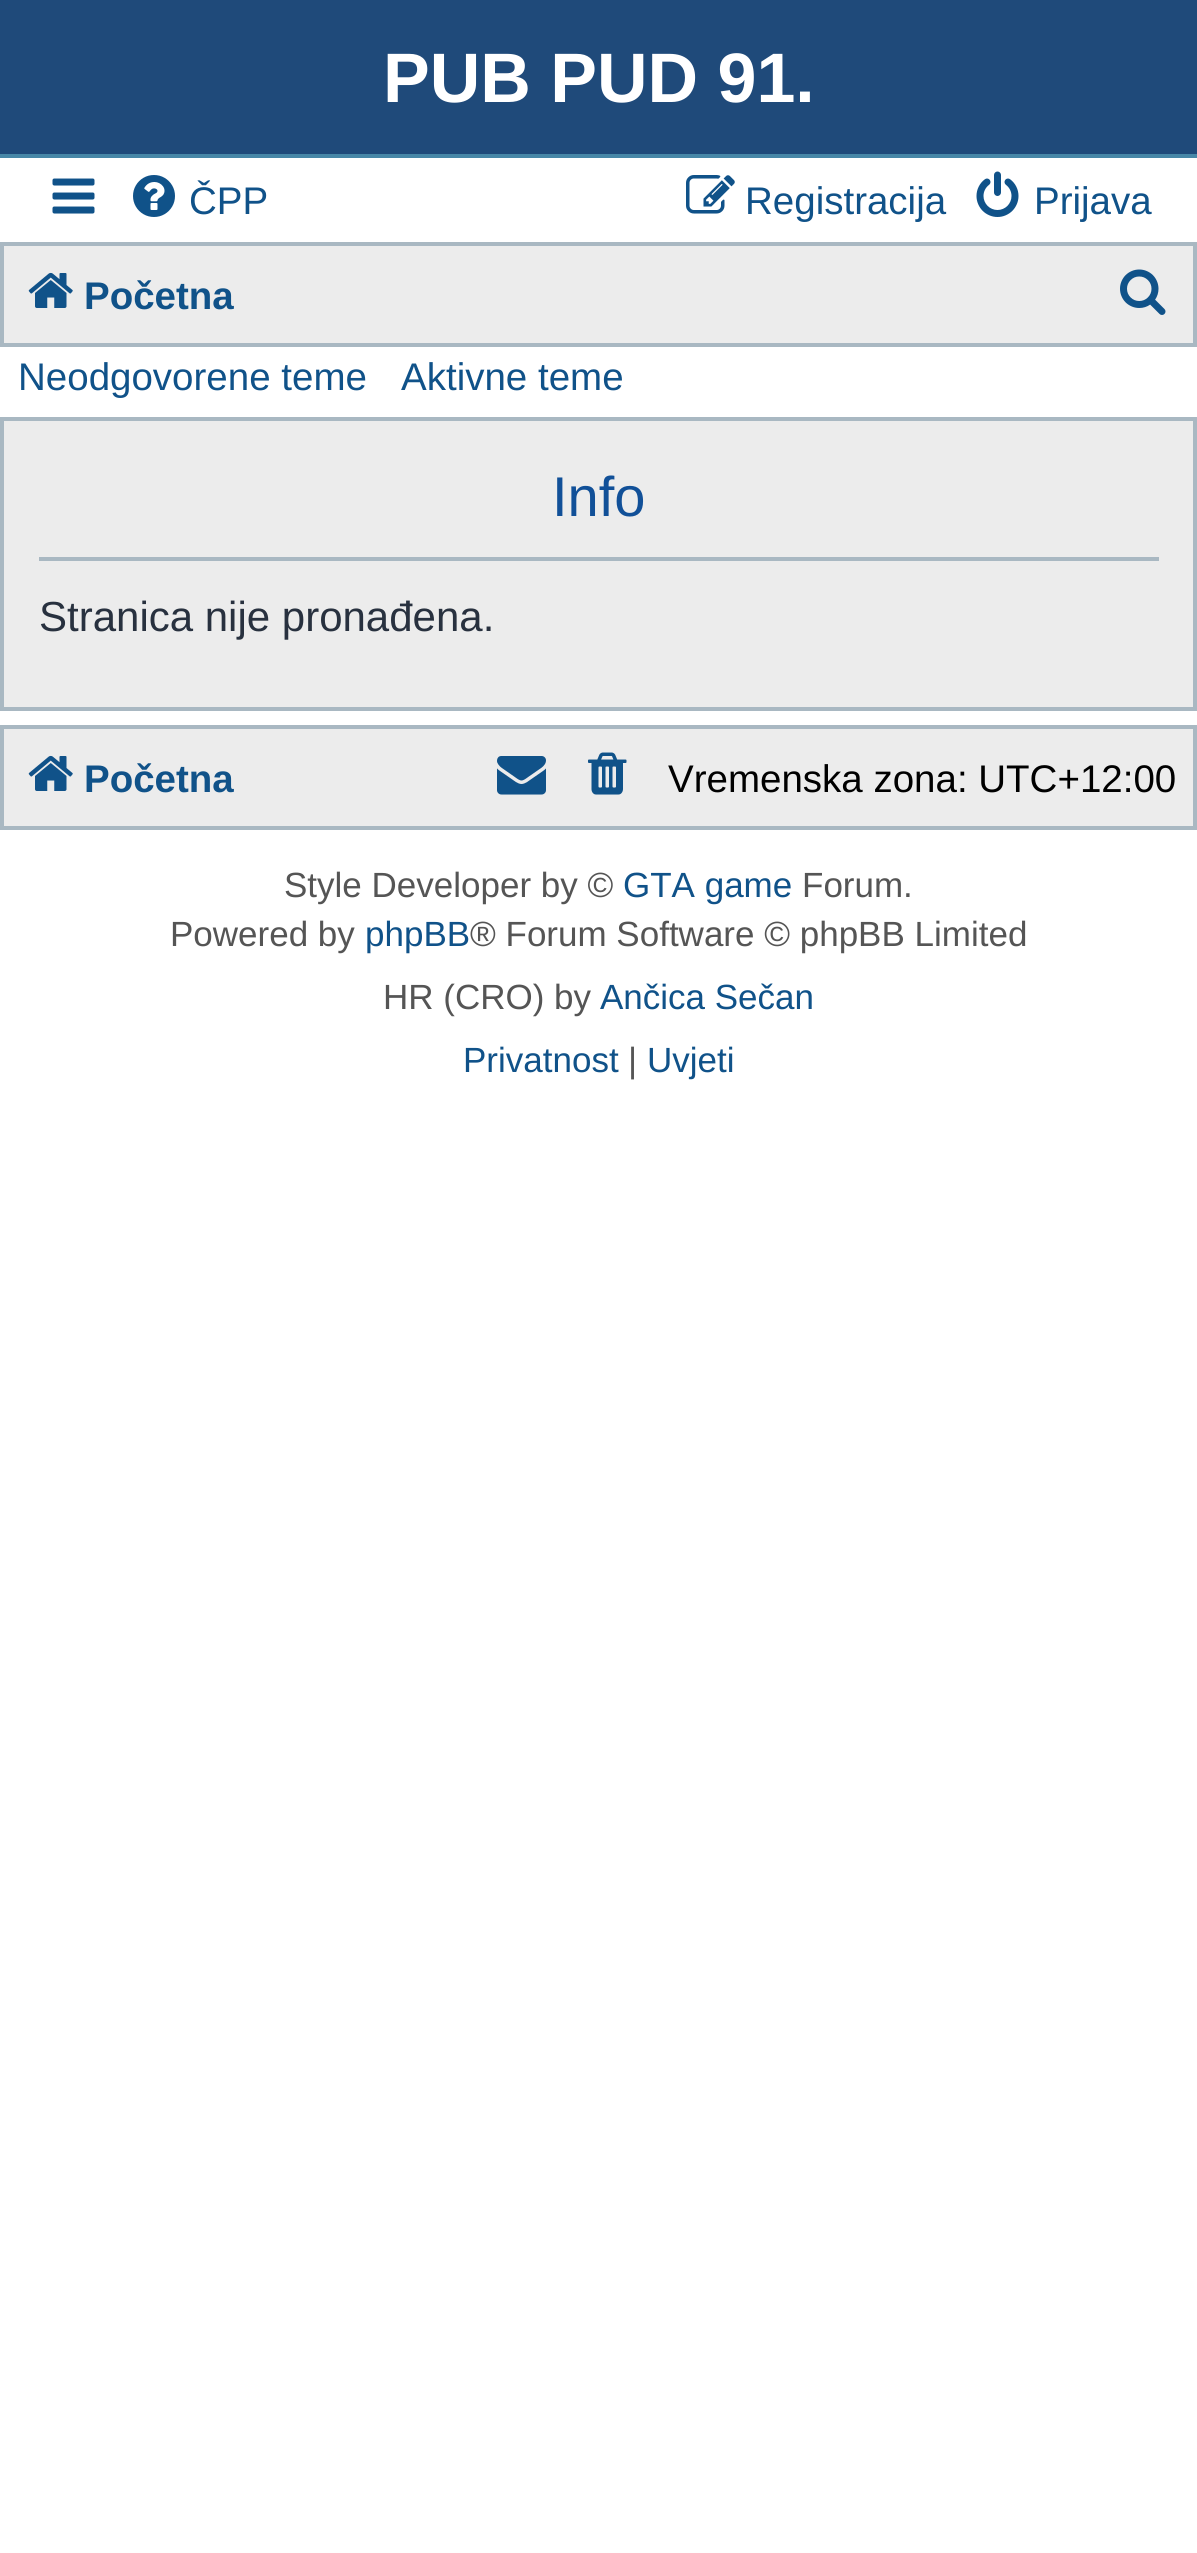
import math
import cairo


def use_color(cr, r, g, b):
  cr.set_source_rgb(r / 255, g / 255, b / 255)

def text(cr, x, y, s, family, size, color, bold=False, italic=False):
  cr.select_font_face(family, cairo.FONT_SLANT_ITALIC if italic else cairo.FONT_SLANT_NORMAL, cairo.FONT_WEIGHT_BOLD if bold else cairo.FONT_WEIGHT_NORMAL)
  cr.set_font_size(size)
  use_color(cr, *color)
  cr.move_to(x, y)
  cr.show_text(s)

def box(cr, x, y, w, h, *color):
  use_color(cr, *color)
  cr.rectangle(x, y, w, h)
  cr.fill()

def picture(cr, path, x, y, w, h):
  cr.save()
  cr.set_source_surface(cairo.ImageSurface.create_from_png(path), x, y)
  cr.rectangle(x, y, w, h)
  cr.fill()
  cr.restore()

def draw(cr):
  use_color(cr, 255, 255, 255)
  cr.paint()
  box(cr, 0, 0, 1197, 154, 31, 74, 122)
  box(cr, 0, 154, 1197, 4, 71, 135, 167)
  picture(cr, "img_01.png", 52, 178, 43, 36)
  picture(cr, "img_02.png", 133, 175, 42, 42)
  picture(cr, "img_03.png", 686, 175, 49, 39)
  picture(cr, "img_04.png", 976, 171, 43, 46)
  use_color(cr, 236, 236, 236)
  cr.rectangle(2, 244, 1193, 101)
  cr.fill_preserve()
  use_color(cr, 169, 184, 194)
  cr.set_line_width(4)
  cr.stroke()
  picture(cr, "img_05.png", 28, 272, 45, 36)
  picture(cr, "img_06.png", 1120, 269, 46, 46)
  use_color(cr, 236, 236, 236)
  cr.rectangle(2, 419, 1193, 290)
  cr.fill_preserve()
  use_color(cr, 169, 184, 194)
  cr.stroke()
  box(cr, 39, 557, 1120, 4, 169, 184, 194)
  use_color(cr, 236, 236, 236)
  cr.rectangle(2, 727, 1193, 101)
  cr.fill_preserve()
  use_color(cr, 169, 184, 194)
  cr.stroke()
  picture(cr, "img_05.png", 28, 755, 45, 36)
  picture(cr, "img_07.png", 497, 756, 49, 39)
  picture(cr, "img_08.png", 588, 752, 39, 43)
  text(cr, 383, 102, "PUB PUD 91.", "Liberation Sans", 70, (255, 255, 255), bold=True)
  text(cr, 189, 214, "ČPP", "Liberation Sans", 38.5, (16, 82, 137))
  text(cr, 745, 214, "Registracija", "Liberation Sans", 38.5, (16, 82, 137))
  text(cr, 1034, 214, "Prijava", "Liberation Sans", 38.5, (16, 82, 137))
  text(cr, 84, 309, "Početna", "Liberation Sans", 38.5, (16, 82, 137), bold=True)
  text(cr, 18, 390, "Neodgovorene teme", "Liberation Sans", 38.5, (16, 82, 137))
  text(cr, 401, 390, "Aktivne teme", "Liberation Sans", 38.5, (16, 82, 137))
  text(cr, 552, 516, "Info", "Liberation Sans", 56, (17, 80, 152))
  text(cr, 39, 631, "Stranica nije pronađena.", "Liberation Sans", 42, (40, 49, 63))
  text(cr, 84, 792, "Početna", "Liberation Sans", 38.5, (16, 82, 137), bold=True)
  text(cr, 668, 792, "Vremenska zona: UTC+12:00", "Liberation Sans", 38.5, (0, 0, 0))
  text(cr, 284, 897, "Style Developer by ©", "Liberation Sans", 35, (85, 85, 85))
  text(cr, 623, 897, "GTA game", "Liberation Sans", 35, (16, 82, 137))
  text(cr, 802, 897, "Forum.", "Liberation Sans", 35, (85, 85, 85))
  text(cr, 170, 946, "Powered by", "Liberation Sans", 35, (85, 85, 85))
  text(cr, 365, 946, "phpBB", "Liberation Sans", 35, (16, 82, 137))
  text(cr, 470, 946, "® Forum Software © phpBB Limited", "Liberation Sans", 35, (85, 85, 85))
  text(cr, 383, 1009, "HR (CRO) by", "Liberation Sans", 35, (85, 85, 85))
  text(cr, 600, 1009, "Ančica Sečan", "Liberation Sans", 35, (16, 82, 137))
  text(cr, 463, 1072, "Privatnost", "Liberation Sans", 35, (16, 82, 137))
  text(cr, 628, 1072, "|", "Liberation Sans", 35, (85, 85, 85))
  text(cr, 647, 1072, "Uvjeti", "Liberation Sans", 35, (16, 82, 137))


surface = cairo.ImageSurface(cairo.FORMAT_RGB24, 1197, 2553)
cr = cairo.Context(surface)
options = cairo.FontOptions()
options.set_hint_metrics(cairo.HINT_METRICS_OFF)
options.set_hint_style(cairo.HINT_STYLE_NONE)
cr.set_font_options(options)
cr.set_miter_limit(4)
draw(cr)
surface.write_to_png("out.png")
